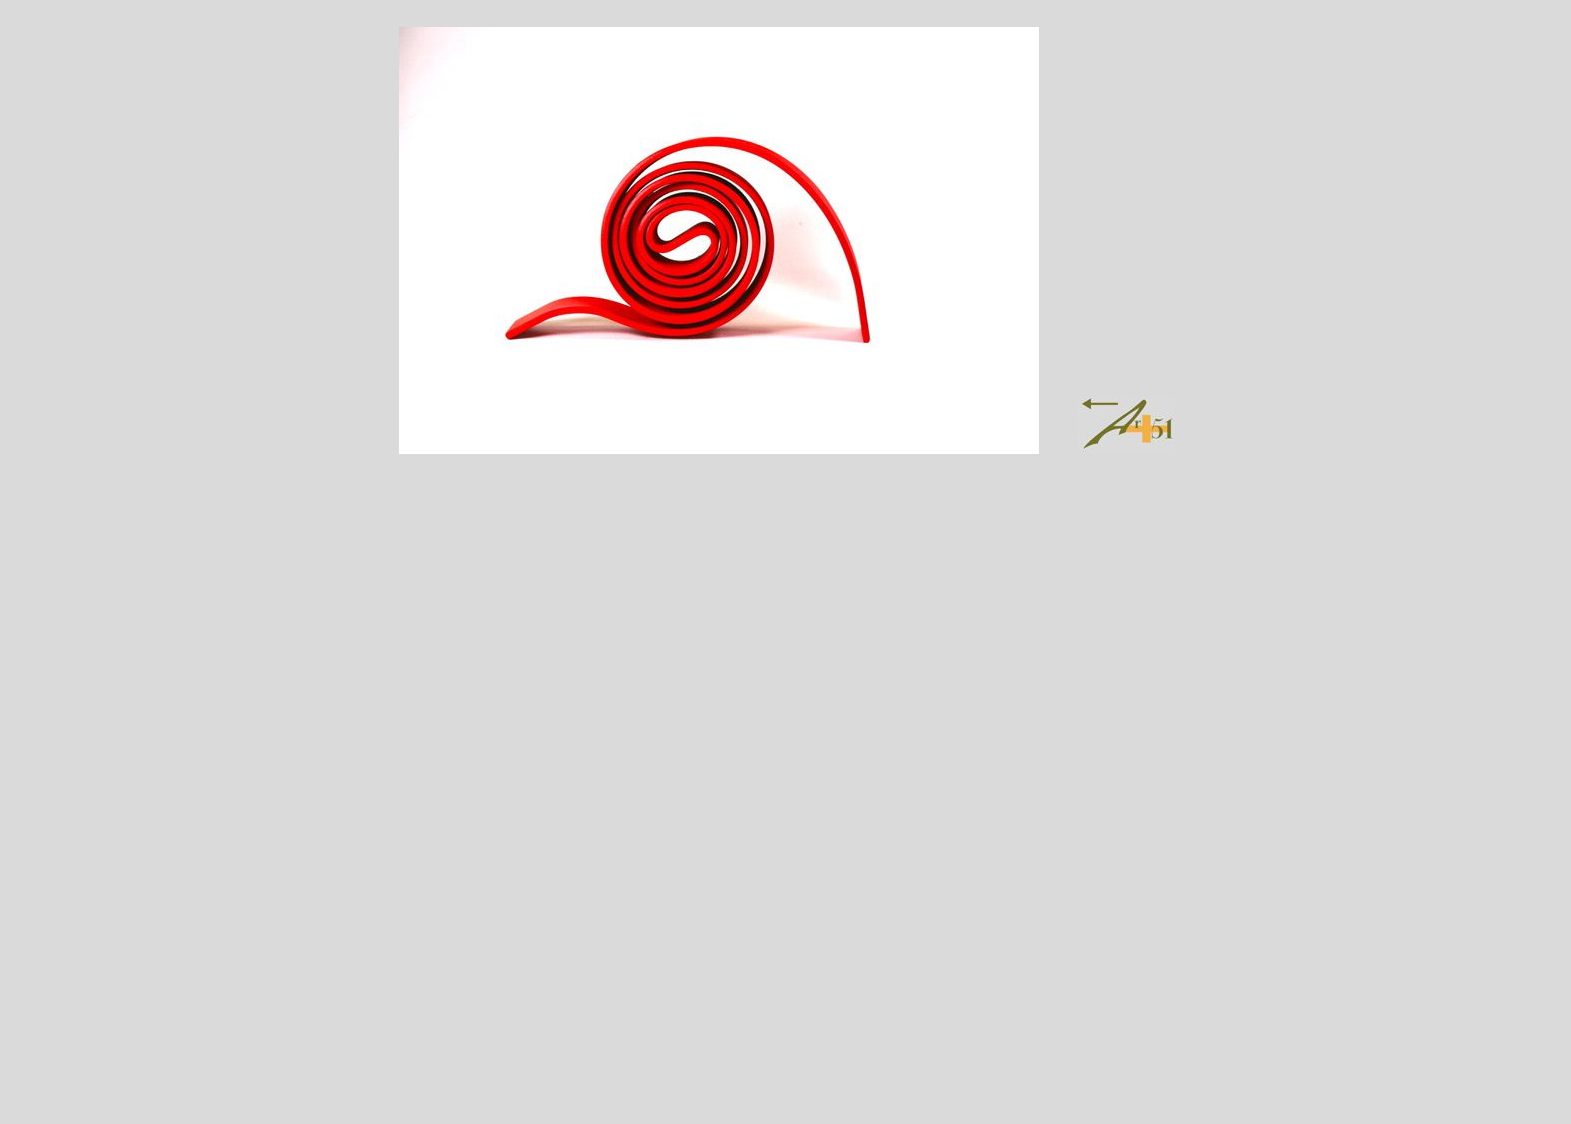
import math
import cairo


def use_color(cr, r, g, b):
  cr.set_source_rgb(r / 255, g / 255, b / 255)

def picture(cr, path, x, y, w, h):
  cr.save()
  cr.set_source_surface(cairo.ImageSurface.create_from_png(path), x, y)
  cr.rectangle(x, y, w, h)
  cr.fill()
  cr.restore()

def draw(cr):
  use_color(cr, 218, 218, 218)
  cr.paint()
  picture(cr, "img_01.png", 399, 27, 640, 427)
  picture(cr, "img_02.png", 1078, 397, 97, 57)


surface = cairo.ImageSurface(cairo.FORMAT_RGB24, 1571, 1124)
cr = cairo.Context(surface)
options = cairo.FontOptions()
options.set_hint_metrics(cairo.HINT_METRICS_OFF)
options.set_hint_style(cairo.HINT_STYLE_NONE)
cr.set_font_options(options)
cr.set_miter_limit(4)
draw(cr)
surface.write_to_png("out.png")
